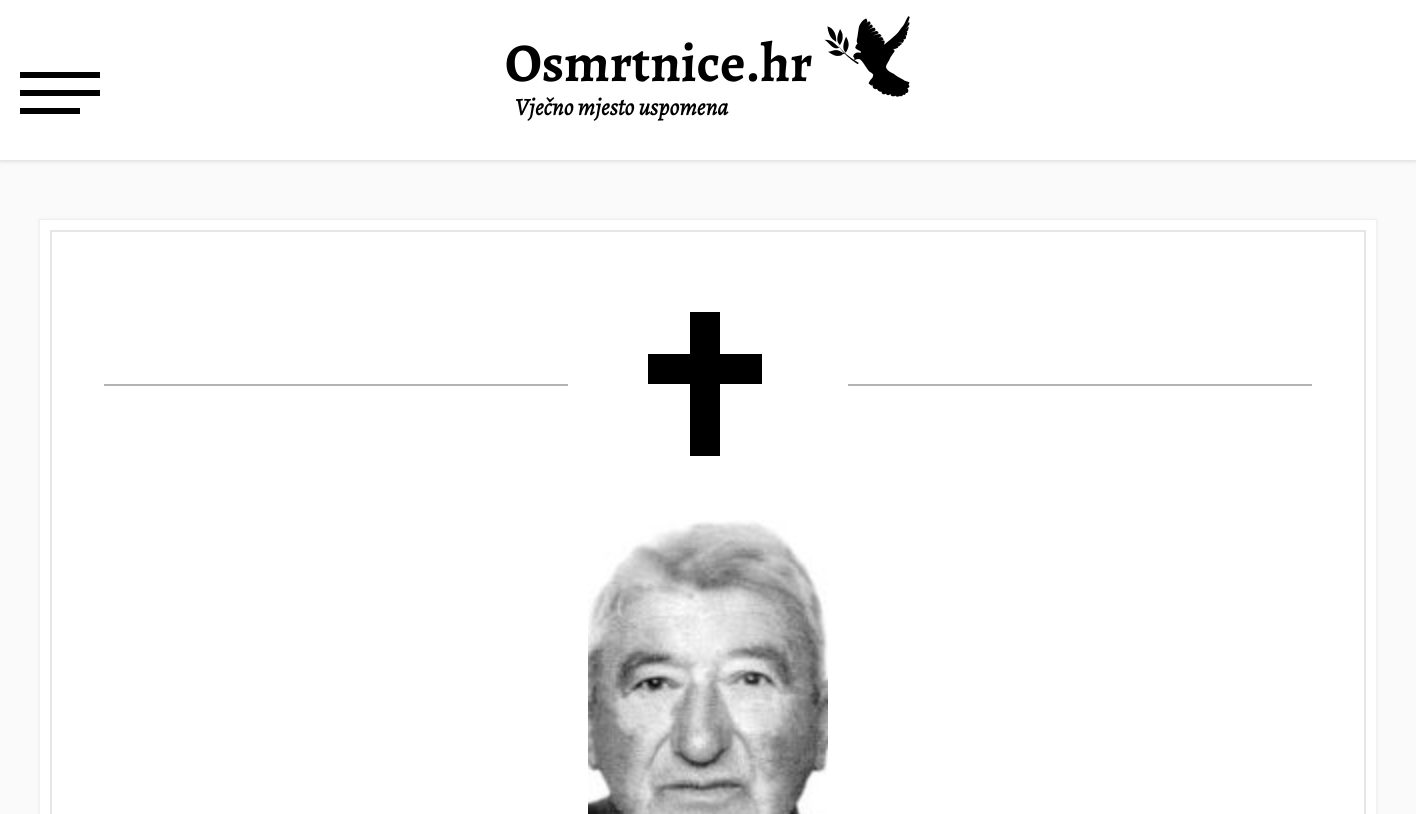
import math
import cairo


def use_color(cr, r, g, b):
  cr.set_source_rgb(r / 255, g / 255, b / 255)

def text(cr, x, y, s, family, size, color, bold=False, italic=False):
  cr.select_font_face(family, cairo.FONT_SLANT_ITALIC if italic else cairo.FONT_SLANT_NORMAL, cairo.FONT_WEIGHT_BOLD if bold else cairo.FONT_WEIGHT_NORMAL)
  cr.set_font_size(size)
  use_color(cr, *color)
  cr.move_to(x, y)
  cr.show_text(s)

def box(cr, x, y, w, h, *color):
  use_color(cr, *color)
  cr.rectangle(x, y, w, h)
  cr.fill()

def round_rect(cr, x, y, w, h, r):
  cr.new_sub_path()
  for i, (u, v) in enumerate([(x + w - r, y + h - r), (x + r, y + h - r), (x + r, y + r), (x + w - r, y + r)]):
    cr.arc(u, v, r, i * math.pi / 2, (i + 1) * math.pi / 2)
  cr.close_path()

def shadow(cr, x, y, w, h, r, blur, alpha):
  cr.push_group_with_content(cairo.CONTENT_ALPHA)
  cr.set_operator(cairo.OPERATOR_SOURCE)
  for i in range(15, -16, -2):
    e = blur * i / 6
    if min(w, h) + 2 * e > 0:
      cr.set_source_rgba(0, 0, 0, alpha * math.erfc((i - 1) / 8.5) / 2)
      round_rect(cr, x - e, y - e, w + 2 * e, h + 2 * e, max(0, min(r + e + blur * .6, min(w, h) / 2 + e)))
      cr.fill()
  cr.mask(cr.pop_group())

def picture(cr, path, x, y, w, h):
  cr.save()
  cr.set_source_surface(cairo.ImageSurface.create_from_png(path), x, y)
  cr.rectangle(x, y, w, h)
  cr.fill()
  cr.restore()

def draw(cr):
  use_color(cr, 250, 250, 250)
  cr.paint()
  use_color(cr, 0, 0, 0)
  shadow(cr, 0, 2, 1416, 160, 0, 2, 0.1)
  box(cr, 0, 0, 1416, 160, 255, 255, 255)
  box(cr, 20, 72, 80, 6, 0, 0, 0)
  box(cr, 20, 90, 80, 6, 0, 0, 0)
  box(cr, 20, 108, 60, 6, 0, 0, 0)
  picture(cr, "img_01.png", 824, 16, 86, 81)
  use_color(cr, 0, 0, 0)
  shadow(cr, 40, 220, 1336, 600, 0, 2, 0.1)
  box(cr, 40, 220, 1336, 594, 255, 255, 255)
  cr.rectangle(51, 231, 1314, 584)
  use_color(cr, 230, 230, 230)
  cr.stroke()
  box(cr, 104, 384, 1208, 2, 179, 179, 179)
  box(cr, 568, 384, 280, 2, 255, 255, 255)
  use_color(cr, 0, 0, 0)
  cr.new_path()
  cr.move_to(720, 312)
  cr.line_to(690, 312)
  cr.line_to(690, 354)
  cr.line_to(648, 354)
  cr.line_to(648, 384)
  cr.line_to(690, 384)
  cr.line_to(690, 456)
  cr.line_to(720, 456)
  cr.line_to(720, 384)
  cr.line_to(762, 384)
  cr.line_to(762, 354)
  cr.line_to(720, 354)
  cr.close_path()
  cr.fill()
  picture(cr, "img_02.png", 588, 520, 240, 294)
  text(cr, 505, 81, "Osmrtnice.hr", "Alegreya", 54.5, (0, 0, 0), bold=True)
  text(cr, 515, 115, "Vječno mjesto uspomena", "Alegreya", 24, (0, 0, 0), bold=True, italic=True)


surface = cairo.ImageSurface(cairo.FORMAT_RGB24, 1416, 814)
cr = cairo.Context(surface)
options = cairo.FontOptions()
options.set_hint_metrics(cairo.HINT_METRICS_OFF)
options.set_hint_style(cairo.HINT_STYLE_NONE)
cr.set_font_options(options)
cr.set_miter_limit(4)
draw(cr)
surface.write_to_png("out.png")
